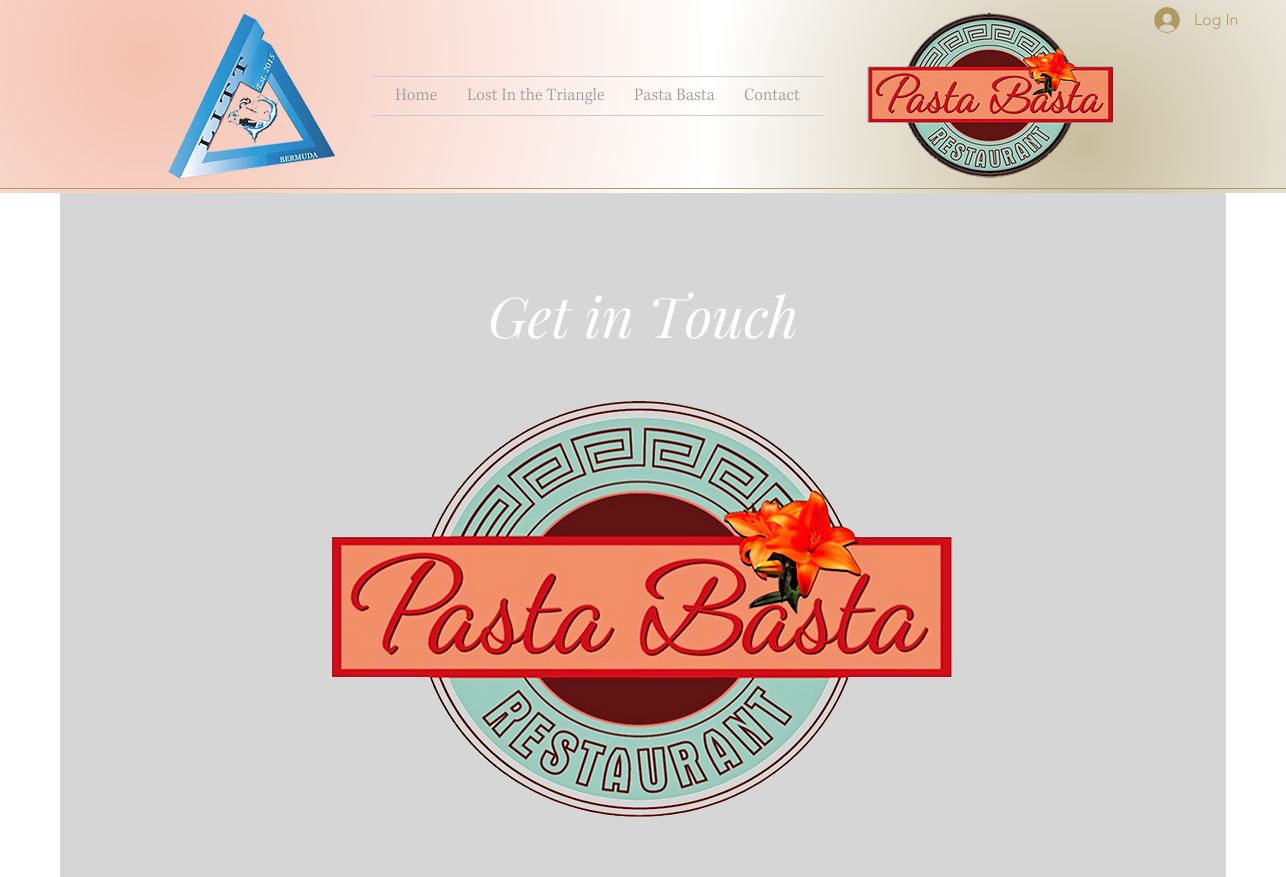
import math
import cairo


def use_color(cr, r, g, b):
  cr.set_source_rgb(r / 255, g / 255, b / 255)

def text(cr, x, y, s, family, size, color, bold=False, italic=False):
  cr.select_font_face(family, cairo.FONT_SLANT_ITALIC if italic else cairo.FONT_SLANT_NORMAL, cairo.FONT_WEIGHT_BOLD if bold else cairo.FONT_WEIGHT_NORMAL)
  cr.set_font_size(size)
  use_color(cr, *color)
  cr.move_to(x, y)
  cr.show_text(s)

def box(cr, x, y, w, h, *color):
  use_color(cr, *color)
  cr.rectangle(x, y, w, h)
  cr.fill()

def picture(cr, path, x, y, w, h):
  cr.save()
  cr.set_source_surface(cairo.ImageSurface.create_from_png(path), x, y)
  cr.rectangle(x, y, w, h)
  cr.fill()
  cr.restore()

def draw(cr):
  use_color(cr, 255, 255, 255)
  cr.paint()
  gradient = cairo.RadialGradient(144, 58, 0, 144, 58, 1150)
  gradient.add_color_stop_rgba(0, 0.957, 0.753, 0.686, 1)
  gradient.add_color_stop_rgba(0.5, 1, 1, 1, 1)
  cr.set_source(gradient)
  cr.rectangle(0, 0, 701, 193)
  cr.fill()
  gradient = cairo.RadialGradient(1085, 143, 0, 1085, 143, 1095)
  gradient.add_color_stop_rgba(0, 0.788, 0.741, 0.624, 1)
  gradient.add_color_stop_rgba(0.35, 0.788, 0.741, 0.624, 0)
  cr.set_source(gradient)
  cr.rectangle(711, 0, 575, 193)
  cr.fill()
  picture(cr, "img_01.png", 166, 13, 171, 166)
  picture(cr, "img_02.png", 867, 13, 246, 165)
  picture(cr, "img_03.png", 1154, 7, 26, 26)
  box(cr, 372, 76, 451, 1, 202, 202, 202)
  box(cr, 372, 115, 451, 1, 202, 202, 202)
  picture(cr, "img_04.png", 395, 88, 42, 13)
  picture(cr, "img_05.png", 467, 88, 137, 17)
  picture(cr, "img_06.png", 634, 88, 81, 13)
  picture(cr, "img_07.png", 744, 88, 56, 13)
  box(cr, 0, 188, 1286, 1, 174, 154, 101)
  box(cr, 60, 193, 1166, 684, 214, 214, 214)
  picture(cr, "img_08.png", 331, 400, 621, 418)
  text(cr, 1194, 25, "Log In", "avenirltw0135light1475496 Light", 16, (174, 154, 101))
  text(cr, 488, 338, "Get in Touch", "Playfair Display", 56, (255, 255, 255), italic=True)


surface = cairo.ImageSurface(cairo.FORMAT_RGB24, 1286, 877)
cr = cairo.Context(surface)
options = cairo.FontOptions()
options.set_hint_metrics(cairo.HINT_METRICS_OFF)
options.set_hint_style(cairo.HINT_STYLE_NONE)
cr.set_font_options(options)
cr.set_miter_limit(4)
draw(cr)
surface.write_to_png("out.png")
